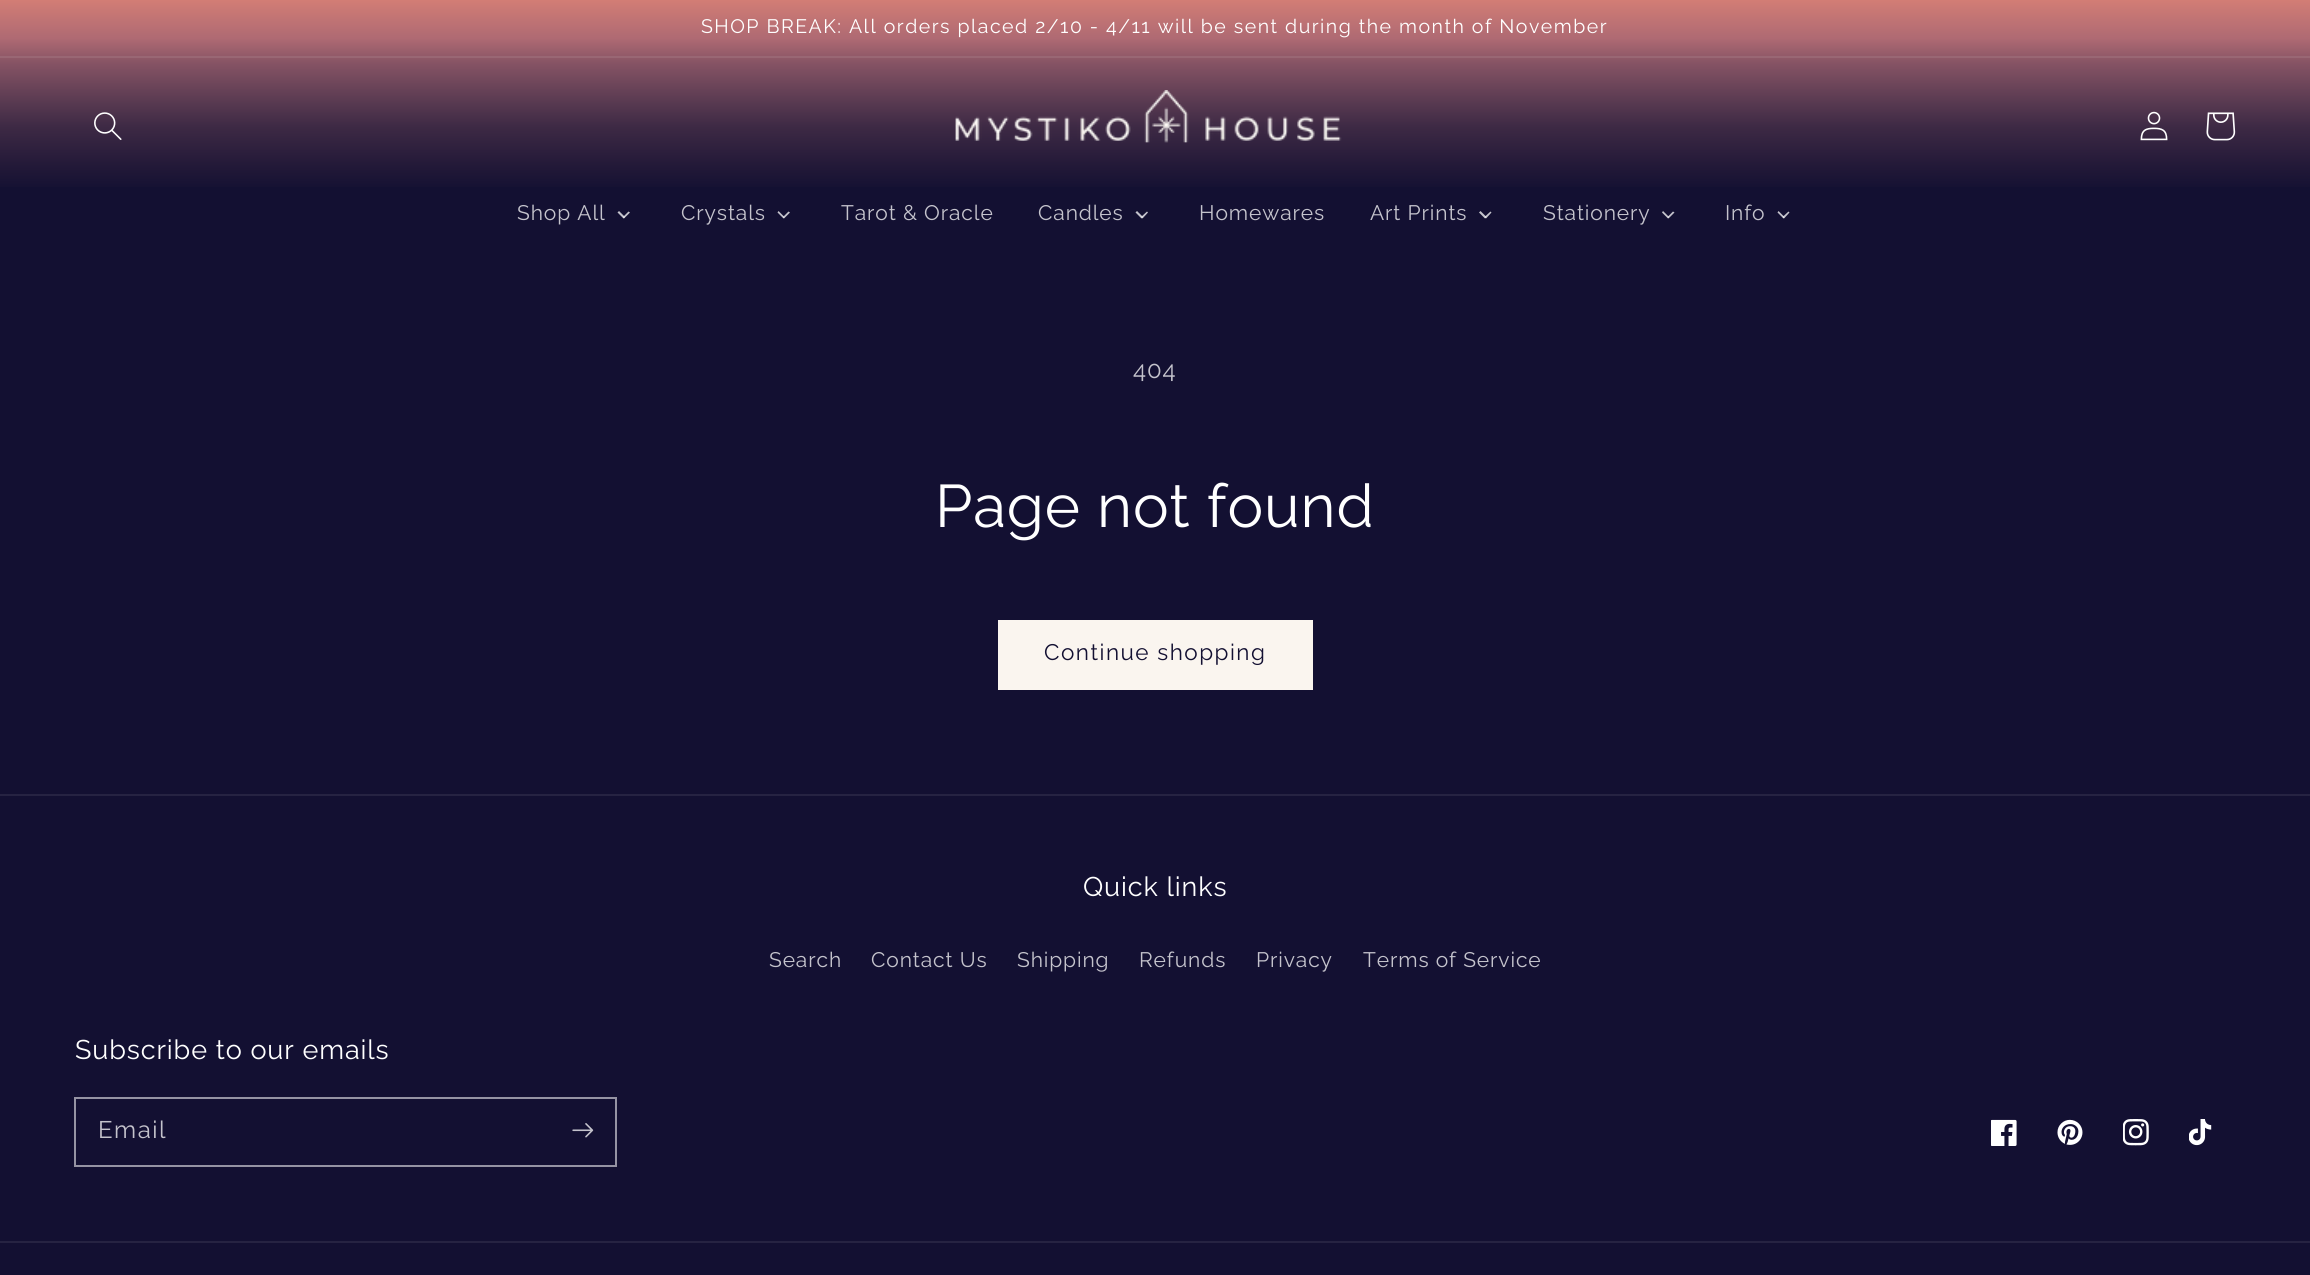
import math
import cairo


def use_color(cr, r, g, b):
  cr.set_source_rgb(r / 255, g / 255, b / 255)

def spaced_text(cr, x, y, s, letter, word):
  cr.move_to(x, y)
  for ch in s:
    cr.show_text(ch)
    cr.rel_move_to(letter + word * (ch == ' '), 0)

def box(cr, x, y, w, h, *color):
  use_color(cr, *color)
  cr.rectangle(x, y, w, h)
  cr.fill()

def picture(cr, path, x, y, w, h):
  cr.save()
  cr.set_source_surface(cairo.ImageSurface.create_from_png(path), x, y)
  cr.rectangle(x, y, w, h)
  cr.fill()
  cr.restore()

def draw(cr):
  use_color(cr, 19, 16, 50)
  cr.paint()
  gradient = cairo.LinearGradient(1155, 0, 1155, 1275)
  gradient.add_color_stop_rgba(0, 0.824, 0.49, 0.459, 1)
  gradient.add_color_stop_rgba(0.03, 0.686, 0.416, 0.451, 1)
  gradient.add_color_stop_rgba(0.05, 0.522, 0.325, 0.392, 1)
  gradient.add_color_stop_rgba(0.08, 0.349, 0.227, 0.318, 1)
  gradient.add_color_stop_rgba(0.1, 0.239, 0.161, 0.267, 1)
  gradient.add_color_stop_rgba(0.13, 0.137, 0.098, 0.22, 1)
  gradient.add_color_stop_rgba(0.15, 0.075, 0.063, 0.196, 1)
  cr.set_source(gradient)
  cr.rectangle(0, 0, 2310, 56)
  cr.fill()
  box(cr, 0, 56, 2310, 2, 153, 103, 116)
  gradient = cairo.LinearGradient(1155, 0, 1155, 1275)
  gradient.add_color_stop_rgba(0, 0.824, 0.49, 0.459, 1)
  gradient.add_color_stop_rgba(0.03, 0.686, 0.416, 0.451, 1)
  gradient.add_color_stop_rgba(0.05, 0.522, 0.325, 0.392, 1)
  gradient.add_color_stop_rgba(0.08, 0.349, 0.227, 0.318, 1)
  gradient.add_color_stop_rgba(0.1, 0.239, 0.161, 0.267, 1)
  gradient.add_color_stop_rgba(0.13, 0.137, 0.098, 0.22, 1)
  gradient.add_color_stop_rgba(0.15, 0.075, 0.063, 0.196, 1)
  cr.set_source(gradient)
  cr.rectangle(0, 58, 2310, 129)
  cr.fill()
  picture(cr, "img_01.png", 94, 112, 28, 28)
  picture(cr, "img_02.png", 955, 90, 387, 53)
  picture(cr, "img_03.png", 2140, 111, 28, 30)
  picture(cr, "img_04.png", 2206, 112, 30, 29)
  use_color(cr, 196, 195, 204)
  cr.new_path()
  cr.move_to(628.5, 211.5)
  cr.line_to(630, 212.5)
  cr.line_to(624, 218.5)
  cr.line_to(623, 217)
  cr.close_path()
  cr.fill()
  cr.set_source_rgba(1, 1, 1, 0.75)
  cr.new_path()
  cr.move_to(619, 211)
  cr.line_to(625, 217)
  cr.line_to(623.5, 218.5)
  cr.line_to(617.5, 212.5)
  cr.close_path()
  cr.fill()
  use_color(cr, 196, 195, 204)
  cr.new_path()
  cr.move_to(788.5, 211.5)
  cr.line_to(790, 212.5)
  cr.line_to(784, 218.5)
  cr.line_to(783, 217)
  cr.close_path()
  cr.fill()
  cr.set_source_rgba(1, 1, 1, 0.75)
  cr.new_path()
  cr.move_to(778.5, 211)
  cr.line_to(784.5, 217)
  cr.line_to(783.5, 218.5)
  cr.line_to(777.5, 212.5)
  cr.close_path()
  cr.fill()
  use_color(cr, 196, 195, 204)
  cr.new_path()
  cr.move_to(1147, 211.5)
  cr.line_to(1148, 212.5)
  cr.line_to(1142.5, 218.5)
  cr.line_to(1141, 217)
  cr.close_path()
  cr.fill()
  cr.set_source_rgba(1, 1, 1, 0.75)
  cr.new_path()
  cr.move_to(1137, 211)
  cr.line_to(1143, 217)
  cr.line_to(1141.5, 218.5)
  cr.line_to(1135.5, 212.5)
  cr.close_path()
  cr.fill()
  use_color(cr, 196, 195, 204)
  cr.new_path()
  cr.move_to(1490.5, 211.5)
  cr.line_to(1491.5, 212.5)
  cr.line_to(1486, 218.5)
  cr.line_to(1484.5, 217)
  cr.close_path()
  cr.fill()
  cr.set_source_rgba(1, 1, 1, 0.75)
  cr.new_path()
  cr.move_to(1480.5, 211)
  cr.line_to(1486.5, 217)
  cr.line_to(1485, 218.5)
  cr.line_to(1479, 212.5)
  cr.close_path()
  cr.fill()
  use_color(cr, 196, 195, 204)
  cr.new_path()
  cr.move_to(1673, 211.5)
  cr.line_to(1674.5, 212.5)
  cr.line_to(1668.5, 218.5)
  cr.line_to(1667.5, 217)
  cr.close_path()
  cr.fill()
  cr.set_source_rgba(1, 1, 1, 0.75)
  cr.new_path()
  cr.move_to(1663, 211)
  cr.line_to(1669, 217)
  cr.line_to(1668, 218.5)
  cr.line_to(1662, 212.5)
  cr.close_path()
  cr.fill()
  use_color(cr, 196, 195, 204)
  cr.new_path()
  cr.move_to(1788.5, 211.5)
  cr.line_to(1789.5, 212.5)
  cr.line_to(1784, 218.5)
  cr.line_to(1782.5, 217)
  cr.close_path()
  cr.fill()
  cr.set_source_rgba(1, 1, 1, 0.75)
  cr.new_path()
  cr.move_to(1778.5, 211)
  cr.line_to(1784.5, 217)
  cr.line_to(1783.5, 218.5)
  cr.line_to(1777.5, 212.5)
  cr.close_path()
  cr.fill()
  cr.rectangle(999, 621, 313, 68)
  use_color(cr, 250, 245, 239)
  cr.stroke()
  box(cr, 1000, 622, 311, 66, 250, 245, 239)
  box(cr, 0, 794, 2310, 2, 38, 35, 66)
  cr.rectangle(75, 1098, 541, 68)
  use_color(cr, 149, 147, 163)
  cr.stroke()
  picture(cr, "img_05.png", 572, 1123, 22, 15)
  picture(cr, "img_06.png", 1991, 1119, 26, 27)
  picture(cr, "img_07.png", 2057, 1119, 26, 26)
  picture(cr, "img_08.png", 2123, 1119, 26, 27)
  picture(cr, "img_09.png", 2189, 1119, 23, 27)
  box(cr, 0, 1241, 2310, 2, 38, 35, 66)
  cr.select_font_face("Raleway Thin")
  cr.set_font_size(19.5)
  use_color(cr, 255, 255, 255)
  spaced_text(cr, 701, 33, "SHOP BREAK: All orders placed 2/10 - 4/11 will be sent during the month of November", 1.5, 0)
  cr.set_font_size(21)
  use_color(cr, 196, 195, 204)
  spaced_text(cr, 517, 220, "Shop All", 0.9, 0)
  spaced_text(cr, 681, 220, "Crystals", 0.9, 0)
  spaced_text(cr, 841, 220, "Tarot & Oracle", 0.9, 0)
  spaced_text(cr, 1038, 220, "Candles", 0.9, 0)
  spaced_text(cr, 1199, 220, "Homewares", 0.9, 0)
  spaced_text(cr, 1370, 220, "Art Prints", 0.9, 0)
  spaced_text(cr, 1543, 220, "Stationery", 0.9, 0)
  spaced_text(cr, 1725, 220, "Info", 0.9, 0)
  cr.set_font_size(24)
  spaced_text(cr, 1133, 378, "404", 0.9, 0)
  cr.set_font_size(60)
  use_color(cr, 255, 255, 255)
  spaced_text(cr, 935, 527, "Page not found", 0.9, 0)
  cr.set_font_size(22.5)
  use_color(cr, 19, 16, 50)
  spaced_text(cr, 1044, 660, "Continue shopping", 1.5, 0)
  cr.set_font_size(27)
  use_color(cr, 255, 255, 255)
  spaced_text(cr, 1083, 896, "Quick links", 0.9, 0)
  cr.set_font_size(21)
  use_color(cr, 196, 195, 204)
  spaced_text(cr, 769, 967, "Search", 0.9, 0)
  spaced_text(cr, 871, 967, "Contact Us", 0.9, 0)
  spaced_text(cr, 1017, 967, "Shipping", 0.9, 0)
  spaced_text(cr, 1139, 967, "Refunds", 0.9, 0)
  spaced_text(cr, 1256, 967, "Privacy", 0.9, 0)
  spaced_text(cr, 1363, 967, "Terms of Service", 0.9, 0)
  cr.set_font_size(27)
  use_color(cr, 255, 255, 255)
  spaced_text(cr, 75, 1059, "Subscribe to our emails", 0.9, 0)
  cr.set_font_size(24)
  use_color(cr, 196, 195, 204)
  spaced_text(cr, 98, 1138, "Email", 1.5, 0)


surface = cairo.ImageSurface(cairo.FORMAT_RGB24, 2310, 1275)
cr = cairo.Context(surface)
options = cairo.FontOptions()
options.set_hint_metrics(cairo.HINT_METRICS_OFF)
options.set_hint_style(cairo.HINT_STYLE_NONE)
cr.set_font_options(options)
cr.set_miter_limit(4)
draw(cr)
surface.write_to_png("out.png")
